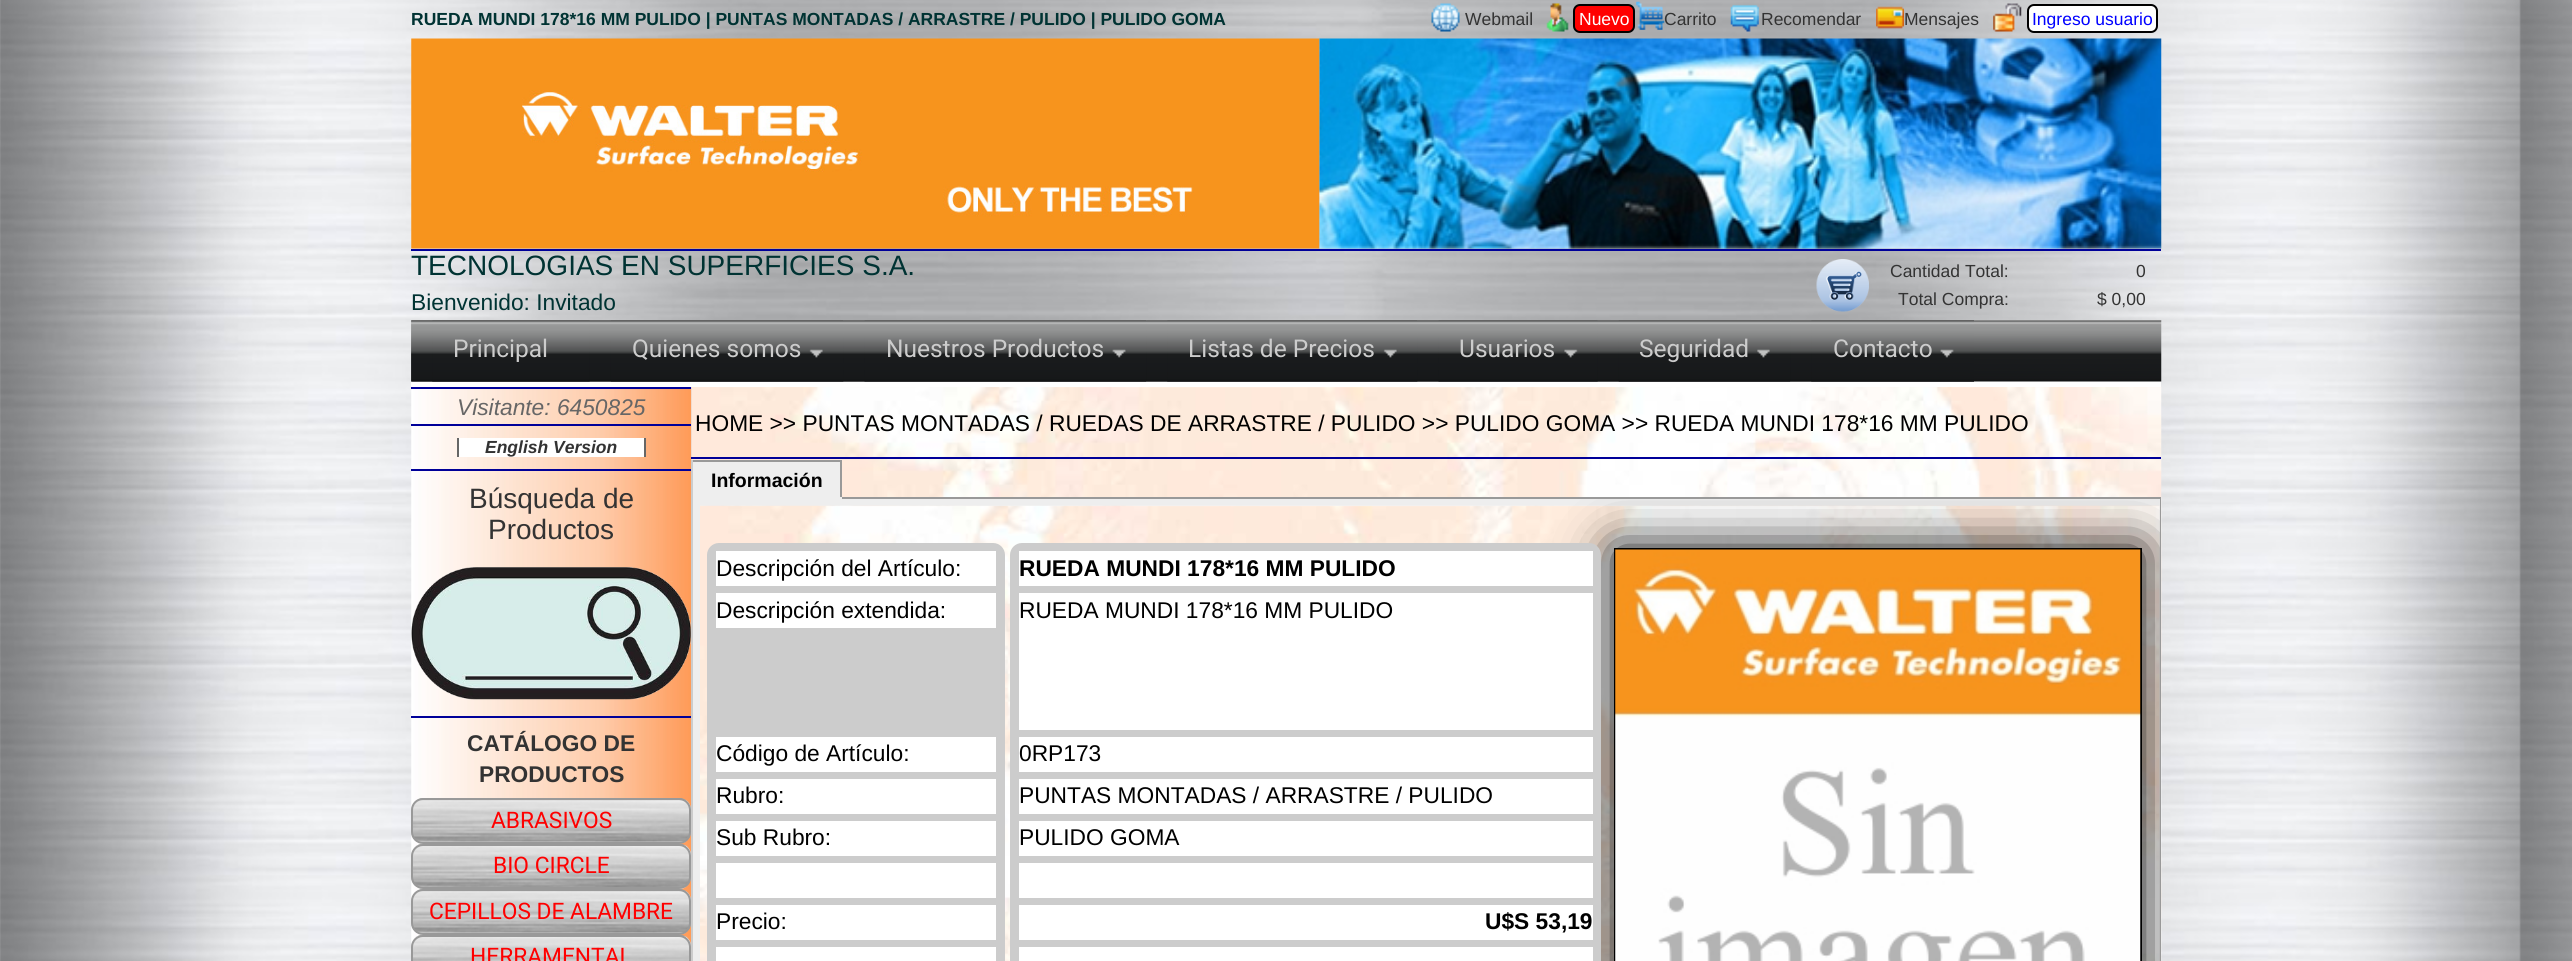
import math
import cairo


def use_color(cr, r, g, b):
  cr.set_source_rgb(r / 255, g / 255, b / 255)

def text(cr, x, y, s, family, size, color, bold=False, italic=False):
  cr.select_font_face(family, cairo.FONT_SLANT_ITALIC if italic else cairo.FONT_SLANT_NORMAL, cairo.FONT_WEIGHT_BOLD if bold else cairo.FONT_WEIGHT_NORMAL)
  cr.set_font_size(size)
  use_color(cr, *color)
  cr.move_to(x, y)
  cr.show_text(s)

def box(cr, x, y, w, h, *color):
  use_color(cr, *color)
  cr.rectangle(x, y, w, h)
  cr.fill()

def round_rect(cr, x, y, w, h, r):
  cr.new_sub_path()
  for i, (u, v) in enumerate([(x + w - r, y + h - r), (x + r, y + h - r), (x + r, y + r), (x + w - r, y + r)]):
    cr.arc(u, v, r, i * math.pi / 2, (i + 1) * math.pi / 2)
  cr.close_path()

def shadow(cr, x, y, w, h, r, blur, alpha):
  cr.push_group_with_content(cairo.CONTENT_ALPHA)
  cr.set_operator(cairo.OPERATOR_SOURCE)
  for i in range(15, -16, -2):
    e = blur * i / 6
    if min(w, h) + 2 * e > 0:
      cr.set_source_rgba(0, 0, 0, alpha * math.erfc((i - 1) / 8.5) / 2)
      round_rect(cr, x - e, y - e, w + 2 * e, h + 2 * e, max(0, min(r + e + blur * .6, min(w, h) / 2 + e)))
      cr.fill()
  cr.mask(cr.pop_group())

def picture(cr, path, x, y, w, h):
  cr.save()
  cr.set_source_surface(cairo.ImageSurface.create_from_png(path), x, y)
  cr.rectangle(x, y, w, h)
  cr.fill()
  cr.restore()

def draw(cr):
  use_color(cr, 255, 255, 255)
  cr.paint()
  picture(cr, "img_01.png", 0, 0, 2572, 961)
  picture(cr, "img_02.png", 1431, 3, 29, 29)
  picture(cr, "img_03.png", 1546, 3, 23, 29)
  use_color(cr, 255, 0, 0)
  round_rect(cr, 1574, 5, 60, 27, 6)
  cr.fill_preserve()
  use_color(cr, 0, 0, 0)
  cr.stroke()
  picture(cr, "img_04.png", 1636, 1, 29, 29)
  picture(cr, "img_05.png", 1730, 4, 29, 28)
  picture(cr, "img_06.png", 1876, 6, 28, 23)
  picture(cr, "img_07.png", 1993, 3, 29, 29)
  use_color(cr, 255, 255, 255)
  round_rect(cr, 2028, 5, 129, 27, 6)
  cr.fill_preserve()
  use_color(cr, 0, 0, 0)
  cr.stroke()
  picture(cr, "img_08.png", 411, 38, 909, 211)
  picture(cr, "img_09.png", 1319, 38, 843, 211)
  box(cr, 411, 249, 1750, 2, 0, 0, 153)
  picture(cr, "img_10.png", 1816, 259, 53, 53)
  picture(cr, "img_26.png", 411, 387, 281, 560)
  picture(cr, "img_32.png", 691, 386, 1471, 575)
  box(cr, 411, 320, 1750, 67, 255, 255, 255)
  picture(cr, "img_11.png", 411, 320, 1751, 62)
  picture(cr, "img_12.png", 411, 320, 179, 62)
  picture(cr, "img_13.png", 432, 320, 158, 62)
  picture(cr, "img_14.png", 589, 320, 255, 62)
  picture(cr, "img_15.png", 610, 320, 234, 62)
  picture(cr, "img_16.png", 843, 320, 304, 62)
  picture(cr, "img_17.png", 864, 320, 283, 62)
  picture(cr, "img_18.png", 1146, 320, 272, 62)
  picture(cr, "img_19.png", 1167, 320, 251, 62)
  picture(cr, "img_20.png", 1417, 320, 181, 62)
  picture(cr, "img_21.png", 1438, 320, 160, 62)
  picture(cr, "img_22.png", 1597, 320, 194, 62)
  picture(cr, "img_23.png", 1618, 320, 173, 62)
  picture(cr, "img_24.png", 1790, 320, 184, 62)
  picture(cr, "img_25.png", 1811, 320, 163, 62)
  box(cr, 411, 387, 280, 2, 0, 0, 153)
  box(cr, 411, 424, 280, 2, 0, 0, 153)
  box(cr, 459, 438, 185, 19, 255, 255, 255)
  box(cr, 644, 438, 2, 19, 102, 102, 102)
  box(cr, 457, 438, 2, 19, 102, 102, 102)
  box(cr, 411, 469, 280, 2, 0, 0, 153)
  picture(cr, "img_27.png", 411, 567, 280, 133)
  box(cr, 411, 716, 280, 2, 0, 0, 153)
  picture(cr, "img_28.png", 411, 798, 280, 46)
  round_rect(cr, 412, 799, 278, 44, 11)
  use_color(cr, 153, 153, 153)
  cr.stroke()
  picture(cr, "img_29.png", 411, 844, 280, 45)
  round_rect(cr, 412, 845, 278, 43, 11)
  cr.stroke()
  picture(cr, "img_30.png", 411, 889, 280, 46)
  round_rect(cr, 412, 890, 278, 44, 11)
  cr.stroke()
  picture(cr, "img_31.png", 411, 935, 280, 26)
  round_rect(cr, 412, 936, 278, 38, 11)
  cr.stroke()
  box(cr, 691, 457, 1470, 2, 0, 0, 153)
  box(cr, 693, 462, 147, 35, 238, 238, 238)
  box(cr, 691, 460, 151, 2, 153, 153, 153)
  box(cr, 840, 460, 2, 39, 153, 153, 153)
  box(cr, 691, 497, 2, 464, 204, 204, 204)
  box(cr, 691, 497, 151, 2, 238, 238, 238)
  box(cr, 691, 460, 2, 39, 204, 204, 204)
  box(cr, 693, 499, 1467, 462, 238, 238, 238)
  box(cr, 842, 497, 1319, 2, 153, 153, 153)
  box(cr, 2160, 497, 1, 464, 153, 153, 153)
  picture(cr, "img_33.png", 700, 505, 1460, 456)
  use_color(cr, 204, 204, 204)
  round_rect(cr, 707, 543, 298, 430, 12)
  cr.fill()
  box(cr, 716, 551, 280, 35, 255, 255, 255)
  box(cr, 716, 593, 280, 35, 255, 255, 255)
  box(cr, 716, 737, 280, 35, 255, 255, 255)
  box(cr, 716, 779, 280, 35, 255, 255, 255)
  box(cr, 716, 821, 280, 35, 255, 255, 255)
  box(cr, 716, 863, 280, 35, 255, 255, 255)
  box(cr, 716, 905, 280, 35, 255, 255, 255)
  box(cr, 716, 947, 280, 14, 255, 255, 255)
  cr.save()
  cr.rectangle(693, 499, 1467, 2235)
  cr.clip()
  use_color(cr, 0, 0, 0)
  shadow(cr, 1614, 548, 528, 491, 0, 26, 1)
  cr.restore()
  use_color(cr, 204, 204, 204)
  round_rect(cr, 1010, 543, 591, 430, 12)
  cr.fill()
  box(cr, 1019, 551, 574, 35, 255, 255, 255)
  box(cr, 1019, 593, 574, 137, 255, 255, 255)
  box(cr, 1019, 737, 574, 35, 255, 255, 255)
  box(cr, 1019, 779, 574, 35, 255, 255, 255)
  box(cr, 1019, 821, 574, 35, 255, 255, 255)
  box(cr, 1019, 863, 574, 35, 255, 255, 255)
  box(cr, 1019, 905, 574, 35, 255, 255, 255)
  box(cr, 1019, 947, 574, 14, 255, 255, 255)
  cr.rectangle(1615, 549, 526, 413)
  use_color(cr, 0, 0, 0)
  cr.stroke()
  picture(cr, "img_34.png", 1615, 549, 526, 412)
  text(cr, 411, 25, "RUEDA MUNDI 178*16 MM PULIDO | PUNTAS MONTADAS / ARRASTRE / PULIDO | PULIDO GOMA", "Liberation Sans", 17.5, (0, 51, 51), bold=True)
  text(cr, 1465, 25, "Webmail", "Liberation Sans", 17.5, (51, 51, 51))
  text(cr, 1579, 25, "Nuevo", "Liberation Sans", 17.5, (255, 255, 255))
  text(cr, 1664, 25, "Carrito", "Liberation Sans", 17.5, (51, 51, 51))
  text(cr, 1761, 25, "Recomendar", "Liberation Sans", 17.5, (51, 51, 51))
  text(cr, 1904, 25, "Mensajes", "Liberation Sans", 17.5, (51, 51, 51))
  text(cr, 2032, 25, "Ingreso usuario", "Liberation Sans", 17.5, (0, 0, 255))
  text(cr, 411, 275, "TECNOLOGIAS EN SUPERFICIES S.A.", "Liberation Sans", 28, (0, 51, 51))
  text(cr, 1890, 277, "Cantidad Total:", "Liberation Sans", 17.5, (51, 51, 51))
  text(cr, 2136, 277, "0", "Liberation Sans", 17.5, (51, 51, 51))
  text(cr, 411, 310, "Bienvenido: Invitado", "Liberation Sans", 22.75, (0, 51, 51))
  text(cr, 1898, 305, "Total Compra:", "Liberation Sans", 17.5, (51, 51, 51))
  text(cr, 2097, 305, "$ 0,00", "Liberation Sans", 17.5, (51, 51, 51))
  text(cr, 453, 357, "Principal", "Roboto", 24.5, (204, 204, 204))
  text(cr, 632, 357, "Quienes somos", "Roboto", 24.5, (204, 204, 204))
  text(cr, 886, 357, "Nuestros Productos", "Roboto", 24.5, (204, 204, 204))
  text(cr, 1188, 357, "Listas de Precios", "Roboto", 24.5, (204, 204, 204))
  text(cr, 1459, 357, "Usuarios", "Roboto", 24.5, (204, 204, 204))
  text(cr, 1639, 357, "Seguridad", "Roboto", 24.5, (204, 204, 204))
  text(cr, 1833, 357, "Contacto", "Roboto", 24.5, (204, 204, 204))
  text(cr, 457, 415, "Visitante: 6450825", "Liberation Sans", 22.75, (102, 102, 102), italic=True)
  text(cr, 485, 453, "English Version", "Liberation Sans", 17.5, (51, 51, 51), bold=True, italic=True)
  text(cr, 469, 508, "Búsqueda de", "Liberation Sans", 28, (51, 51, 51))
  text(cr, 488, 539, "Productos", "Liberation Sans", 28, (51, 51, 51))
  text(cr, 467, 751, "CATÁLOGO DE", "Liberation Sans", 22.75, (51, 51, 51), bold=True)
  text(cr, 479, 782, "PRODUCTOS", "Liberation Sans", 22.75, (51, 51, 51), bold=True)
  text(cr, 491, 828, "ABRASIVOS", "Roboto", 22.75, (255, 0, 0))
  text(cr, 493, 873, "BIO CIRCLE", "Roboto", 22.75, (255, 0, 0))
  text(cr, 429, 919, "CEPILLOS DE ALAMBRE", "Roboto", 22.75, (255, 0, 0))
  text(cr, 470, 964, "HERRAMENTAL", "Roboto", 22.75, (255, 0, 0))
  text(cr, 695, 431, "HOME >> PUNTAS MONTADAS / RUEDAS DE ARRASTRE / PULIDO >> PULIDO GOMA >> RUEDA MUNDI 178*16 MM PULIDO", "Liberation Sans", 22.75, (0, 0, 0))
  text(cr, 711, 487, "Información", "Liberation Sans", 19.5, (0, 0, 0), bold=True)
  text(cr, 716, 576, "Descripción del Artículo:", "Liberation Sans", 22.75, (0, 0, 0))
  text(cr, 716, 618, "Descripción extendida:", "Liberation Sans", 22.75, (0, 0, 0))
  text(cr, 716, 761, "Código de Artículo:", "Liberation Sans", 22.75, (0, 0, 0))
  text(cr, 716, 803, "Rubro:", "Liberation Sans", 22.75, (0, 0, 0))
  text(cr, 716, 845, "Sub Rubro:", "Liberation Sans", 22.75, (0, 0, 0))
  text(cr, 716, 929, "Precio:", "Liberation Sans", 22.75, (0, 0, 0))
  text(cr, 1019, 576, "RUEDA MUNDI 178*16 MM PULIDO", "Liberation Sans", 22.75, (0, 0, 0), bold=True)
  text(cr, 1019, 618, "RUEDA MUNDI 178*16 MM PULIDO", "Liberation Sans", 22.75, (0, 0, 0))
  text(cr, 1019, 761, "0RP173", "Liberation Sans", 22.75, (0, 0, 0))
  text(cr, 1019, 803, "PUNTAS MONTADAS / ARRASTRE / PULIDO", "Liberation Sans", 22.75, (0, 0, 0))
  text(cr, 1019, 845, "PULIDO GOMA", "Liberation Sans", 22.75, (0, 0, 0))
  text(cr, 1485, 929, "U$S 53,19", "Liberation Sans", 22.75, (0, 0, 0), bold=True)


surface = cairo.ImageSurface(cairo.FORMAT_RGB24, 2572, 961)
cr = cairo.Context(surface)
options = cairo.FontOptions()
options.set_hint_metrics(cairo.HINT_METRICS_OFF)
options.set_hint_style(cairo.HINT_STYLE_NONE)
cr.set_font_options(options)
cr.set_miter_limit(4)
draw(cr)
surface.write_to_png("out.png")
